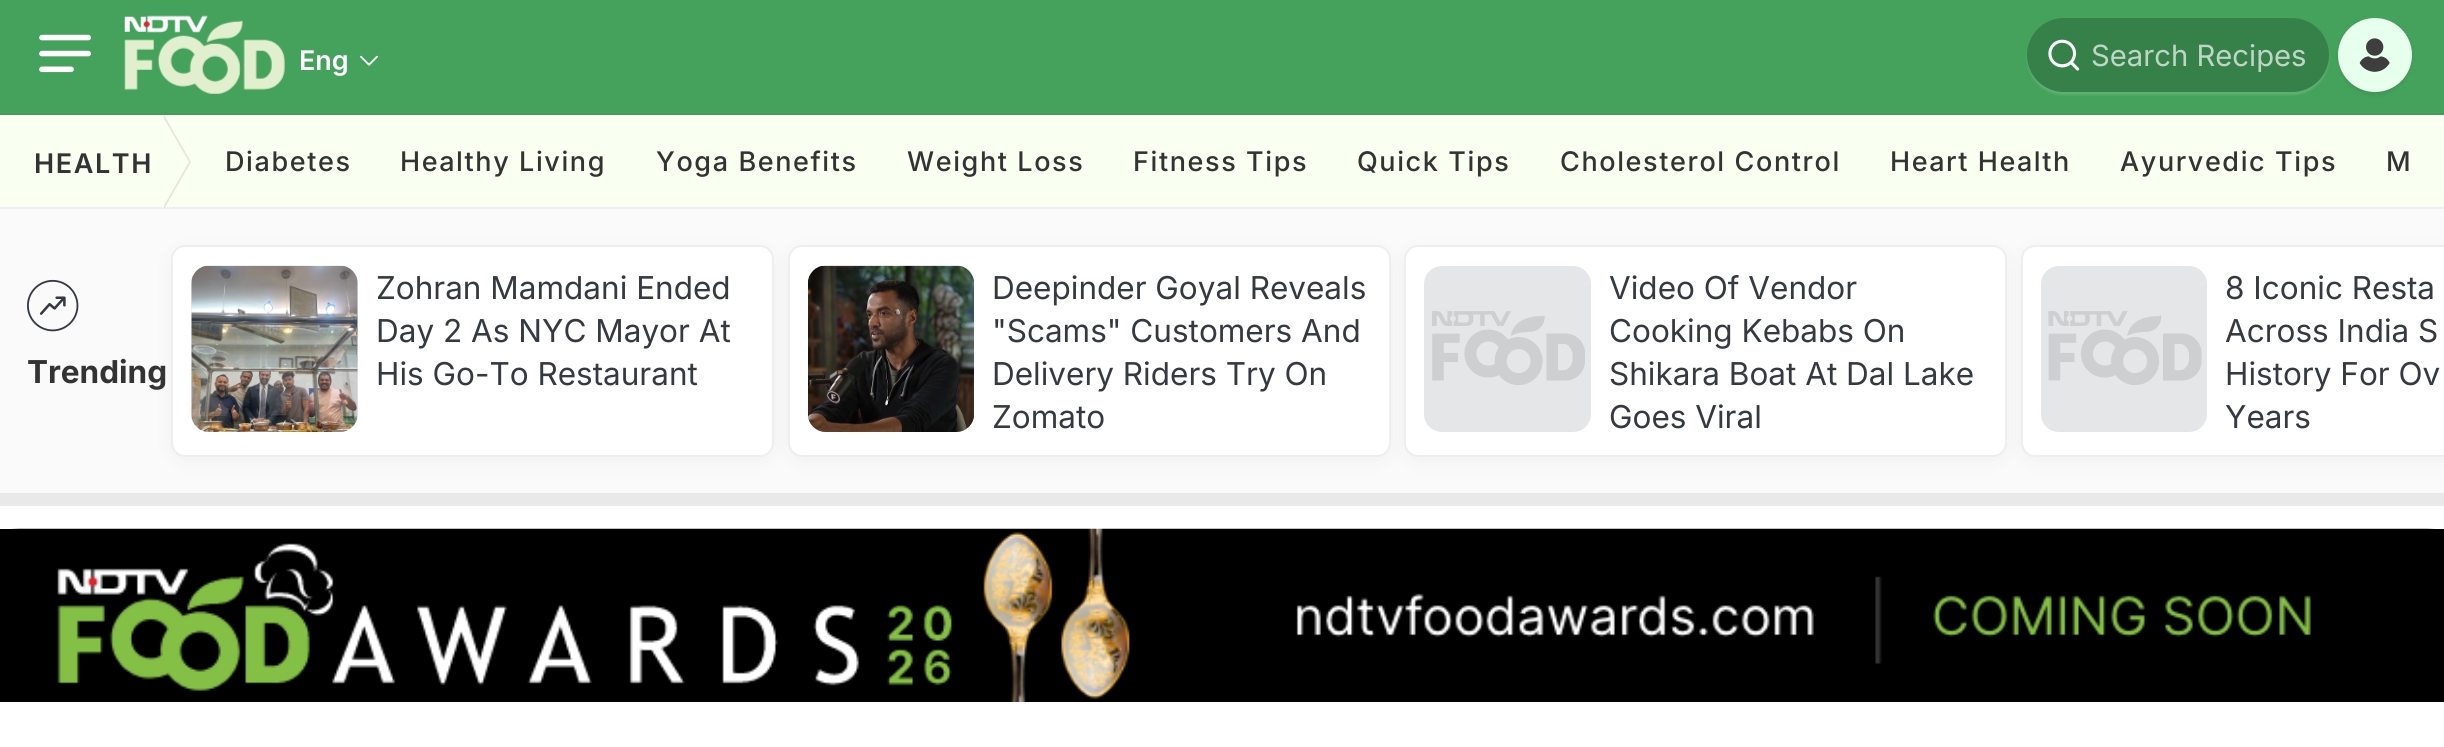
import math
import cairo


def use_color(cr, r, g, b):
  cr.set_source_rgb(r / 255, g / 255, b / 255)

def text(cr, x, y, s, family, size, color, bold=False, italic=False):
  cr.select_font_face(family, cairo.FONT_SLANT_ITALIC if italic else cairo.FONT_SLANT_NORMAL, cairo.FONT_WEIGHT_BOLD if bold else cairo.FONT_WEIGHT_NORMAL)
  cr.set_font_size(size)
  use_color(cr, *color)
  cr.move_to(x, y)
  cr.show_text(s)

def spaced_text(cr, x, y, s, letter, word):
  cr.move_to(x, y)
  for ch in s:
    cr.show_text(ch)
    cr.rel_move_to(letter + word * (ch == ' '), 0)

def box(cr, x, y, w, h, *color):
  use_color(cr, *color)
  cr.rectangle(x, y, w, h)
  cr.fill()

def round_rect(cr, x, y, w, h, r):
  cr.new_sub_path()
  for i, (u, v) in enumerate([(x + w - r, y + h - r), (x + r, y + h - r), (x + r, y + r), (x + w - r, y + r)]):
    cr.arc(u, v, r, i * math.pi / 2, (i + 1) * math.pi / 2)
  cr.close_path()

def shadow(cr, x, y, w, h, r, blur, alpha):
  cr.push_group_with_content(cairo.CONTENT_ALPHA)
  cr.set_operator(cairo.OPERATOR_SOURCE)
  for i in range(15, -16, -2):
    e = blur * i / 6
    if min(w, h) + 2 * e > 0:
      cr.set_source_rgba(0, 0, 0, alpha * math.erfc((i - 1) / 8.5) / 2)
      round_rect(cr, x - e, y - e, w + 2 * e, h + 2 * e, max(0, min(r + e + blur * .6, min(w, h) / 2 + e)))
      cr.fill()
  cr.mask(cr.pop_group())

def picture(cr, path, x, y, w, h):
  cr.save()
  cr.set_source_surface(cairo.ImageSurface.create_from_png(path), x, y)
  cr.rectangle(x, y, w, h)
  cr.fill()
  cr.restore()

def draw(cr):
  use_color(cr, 255, 255, 255)
  cr.paint()
  box(cr, 0, 0, 2444, 113, 68, 162, 92)
  box(cr, 0, 113, 2444, 2, 67, 154, 89)
  picture(cr, "img_01.png", 39, 34, 52, 39)
  picture(cr, "img_02.png", 124, 15, 161, 79)
  picture(cr, "img_03.png", 360, 55, 18, 11)
  cr.save()
  cr.set_fill_rule(cairo.FILL_RULE_EVEN_ODD)
  cr.new_path()
  cr.move_to(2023, 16)
  cr.line_to(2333, 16)
  cr.line_to(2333, 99)
  cr.line_to(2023, 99)
  cr.close_path()
  cr.move_to(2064, 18)
  cr.line_to(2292, 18)
  cr.curve_to(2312.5, 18, 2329, 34.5, 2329, 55)
  cr.curve_to(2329, 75.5, 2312.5, 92, 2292, 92)
  cr.line_to(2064, 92)
  cr.curve_to(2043.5, 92, 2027, 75.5, 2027, 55)
  cr.curve_to(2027, 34.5, 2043.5, 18, 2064, 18)
  cr.close_path()
  cr.clip()
  use_color(cr, 255, 255, 255)
  shadow(cr, 2027, 20, 302, 75, 37.5, 1, 0.14)
  cr.restore()
  cr.set_source_rgba(0, 0, 0, 0.21)
  round_rect(cr, 2027, 18, 302, 74, 37)
  cr.fill()
  picture(cr, "img_04.png", 2048, 39, 32, 32)
  use_color(cr, 0, 0, 0)
  shadow(cr, 2338, 20, 74, 75, 37, 2, 0.07)
  use_color(cr, 231, 255, 237)
  cr.arc(2375, 55, 34.5, 0, 2 * math.pi)
  cr.fill_preserve()
  use_color(cr, 232, 255, 237)
  cr.set_line_width(5)
  cr.stroke()
  picture(cr, "img_05.png", 2359, 38, 31, 34)
  box(cr, 0, 115, 2444, 92, 249, 255, 241)
  box(cr, 0, 207, 2444, 2, 238, 238, 238)
  cr.set_source_rgba(0.443, 0.443, 0.443, 0.17)
  cr.new_path()
  cr.move_to(164, 209)
  cr.line_to(164, 115)
  cr.line_to(191, 162)
  cr.close_path()
  cr.fill()
  use_color(cr, 249, 255, 241)
  cr.new_path()
  cr.move_to(162, 209)
  cr.line_to(162, 115)
  cr.line_to(189, 162)
  cr.close_path()
  cr.fill()
  box(cr, 0, 209, 2444, 284, 250, 250, 250)
  box(cr, 0, 493, 2444, 13, 233, 233, 233)
  picture(cr, "img_06.png", 27, 279, 52, 53)
  use_color(cr, 0, 0, 0)
  shadow(cr, 171, 250, 603, 211, 14, 11, 0.04)
  use_color(cr, 255, 255, 255)
  round_rect(cr, 171, 245, 603, 212, 14)
  cr.fill()
  round_rect(cr, 172, 246, 601, 210, 13)
  cr.set_source_rgba(0, 0, 0, 0.07)
  cr.set_line_width(2)
  cr.stroke()
  use_color(cr, 250, 250, 250)
  round_rect(cr, 191, 266, 167, 166, 18)
  cr.fill()
  cr.set_source_rgba(0.173, 0.227, 0.29, 0.1)
  cr.new_path()
  cr.move_to(209, 266)
  cr.line_to(340, 266)
  cr.curve_to(350, 266, 358, 274, 358, 284)
  cr.line_to(358, 414)
  cr.curve_to(358, 424, 350, 432, 340, 432)
  cr.line_to(209, 432)
  cr.curve_to(199, 432, 191, 424, 191, 414)
  cr.line_to(191, 284)
  cr.curve_to(191, 274, 199, 266, 209, 266)
  cr.close_path()
  cr.fill()
  picture(cr, "img_07.png", 191, 265, 167, 167)
  use_color(cr, 0, 0, 0)
  shadow(cr, 788, 250, 603, 211, 14, 11, 0.04)
  use_color(cr, 255, 255, 255)
  round_rect(cr, 788, 245, 603, 212, 14)
  cr.fill()
  round_rect(cr, 789, 246, 601, 210, 13)
  cr.set_source_rgba(0, 0, 0, 0.07)
  cr.stroke()
  picture(cr, "img_08.png", 808, 265, 166, 167)
  use_color(cr, 0, 0, 0)
  shadow(cr, 1404, 250, 603, 211, 14, 11, 0.04)
  use_color(cr, 255, 255, 255)
  round_rect(cr, 1404, 245, 603, 212, 14)
  cr.fill()
  round_rect(cr, 1405, 246, 601, 210, 13)
  cr.set_source_rgba(0, 0, 0, 0.07)
  cr.stroke()
  use_color(cr, 250, 250, 250)
  round_rect(cr, 1424, 266, 167, 166, 18)
  cr.fill()
  picture(cr, "img_09.png", 1432, 311, 153, 74)
  cr.set_source_rgba(0.173, 0.227, 0.29, 0.1)
  cr.new_path()
  cr.move_to(1442, 266)
  cr.line_to(1573, 266)
  cr.curve_to(1583, 266, 1591, 274, 1591, 284)
  cr.line_to(1591, 414)
  cr.curve_to(1591, 424, 1583, 432, 1573, 432)
  cr.line_to(1442, 432)
  cr.curve_to(1432, 432, 1424, 424, 1424, 414)
  cr.line_to(1424, 284)
  cr.curve_to(1424, 274, 1432, 266, 1442, 266)
  cr.close_path()
  cr.fill()
  use_color(cr, 0, 0, 0)
  shadow(cr, 2021, 250, 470, 211, 14, 11, 0.04)
  use_color(cr, 255, 255, 255)
  cr.new_path()
  cr.move_to(2035, 245)
  cr.line_to(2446, 245)
  cr.line_to(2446, 457)
  cr.line_to(2035, 457)
  cr.curve_to(2027.5, 457, 2021, 450.5, 2021, 443)
  cr.line_to(2021, 259)
  cr.curve_to(2021, 251.5, 2027.5, 245, 2035, 245)
  cr.close_path()
  cr.fill()
  round_rect(cr, 2022, 246, 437, 210, 13)
  cr.set_source_rgba(0, 0, 0, 0.07)
  cr.stroke()
  use_color(cr, 250, 250, 250)
  round_rect(cr, 2041, 266, 166, 166, 18)
  cr.fill()
  picture(cr, "img_10.png", 2048, 311, 154, 74)
  cr.set_source_rgba(0.173, 0.227, 0.29, 0.1)
  cr.new_path()
  cr.move_to(2059, 266)
  cr.line_to(2189, 266)
  cr.curve_to(2199, 266, 2207, 274, 2207, 284)
  cr.line_to(2207, 414)
  cr.curve_to(2207, 424, 2199, 432, 2189, 432)
  cr.line_to(2059, 432)
  cr.curve_to(2049, 432, 2041, 424, 2041, 414)
  cr.line_to(2041, 284)
  cr.curve_to(2041, 274, 2049, 266, 2059, 266)
  cr.close_path()
  cr.fill()
  box(cr, 0, 529, 2444, 173, 0, 0, 0)
  picture(cr, "img_11.png", 11, 528, 2424, 174)
  text(cr, 299, 70, "Eng", "Inter SemiBold", 27, (255, 255, 255))
  text(cr, 2091, 66, "Search Recipes", "Inter", 29.25, (191, 214, 197))
  cr.select_font_face("Inter SemiBold")
  cr.set_font_size(27)
  use_color(cr, 51, 51, 51)
  spaced_text(cr, 34, 173, "HEALTH", 1.6, 0)
  cr.select_font_face("Inter Medium")
  spaced_text(cr, 225, 171, "Diabetes", 1.6, 0)
  spaced_text(cr, 400, 171, "Healthy Living", 1.6, 0)
  spaced_text(cr, 656, 171, "Yoga Benefits", 1.6, 0)
  spaced_text(cr, 907, 171, "Weight Loss", 1.6, 0)
  spaced_text(cr, 1133, 171, "Fitness Tips", 1.6, 0)
  spaced_text(cr, 1357, 171, "Quick Tips", 1.6, 0)
  spaced_text(cr, 1560, 171, "Cholesterol Control", 1.6, 0)
  spaced_text(cr, 1890, 171, "Heart Health", 1.6, 0)
  spaced_text(cr, 2120, 171, "Ayurvedic Tips", 1.6, 0)
  spaced_text(cr, 2386, 171, "M", 1.6, 0)
  text(cr, 27, 383, "Trending", "Inter", 31.5, (51, 51, 51), bold=True)
  text(cr, 376, 299, "Zohran Mamdani Ended", "Inter", 31.5, (52, 58, 64))
  text(cr, 376, 342, "Day 2 As NYC Mayor At", "Inter", 31.5, (52, 58, 64))
  text(cr, 376, 385, "His Go-To Restaurant", "Inter", 31.5, (52, 58, 64))
  text(cr, 992, 299, "Deepinder Goyal Reveals", "Inter", 31.5, (52, 58, 64))
  text(cr, 992, 342, "\"Scams\" Customers And", "Inter", 31.5, (52, 58, 64))
  text(cr, 992, 385, "Delivery Riders Try On", "Inter", 31.5, (52, 58, 64))
  text(cr, 992, 428, "Zomato", "Inter", 31.5, (52, 58, 64))
  text(cr, 1609, 299, "Video Of Vendor", "Inter", 31.5, (52, 58, 64))
  text(cr, 1609, 342, "Cooking Kebabs On", "Inter", 31.5, (52, 58, 64))
  text(cr, 1609, 385, "Shikara Boat At Dal Lake", "Inter", 31.5, (52, 58, 64))
  text(cr, 1609, 428, "Goes Viral", "Inter", 31.5, (52, 58, 64))
  text(cr, 2225, 299, "8 Iconic Resta", "Inter", 31.5, (52, 58, 64))
  text(cr, 2225, 342, "Across India S", "Inter", 31.5, (52, 58, 64))
  text(cr, 2225, 385, "History For Ov", "Inter", 31.5, (52, 58, 64))
  text(cr, 2225, 428, "Years", "Inter", 31.5, (52, 58, 64))


surface = cairo.ImageSurface(cairo.FORMAT_RGB24, 2444, 747)
cr = cairo.Context(surface)
options = cairo.FontOptions()
options.set_hint_metrics(cairo.HINT_METRICS_OFF)
options.set_hint_style(cairo.HINT_STYLE_NONE)
cr.set_font_options(options)
cr.set_miter_limit(4)
draw(cr)
surface.write_to_png("out.png")
